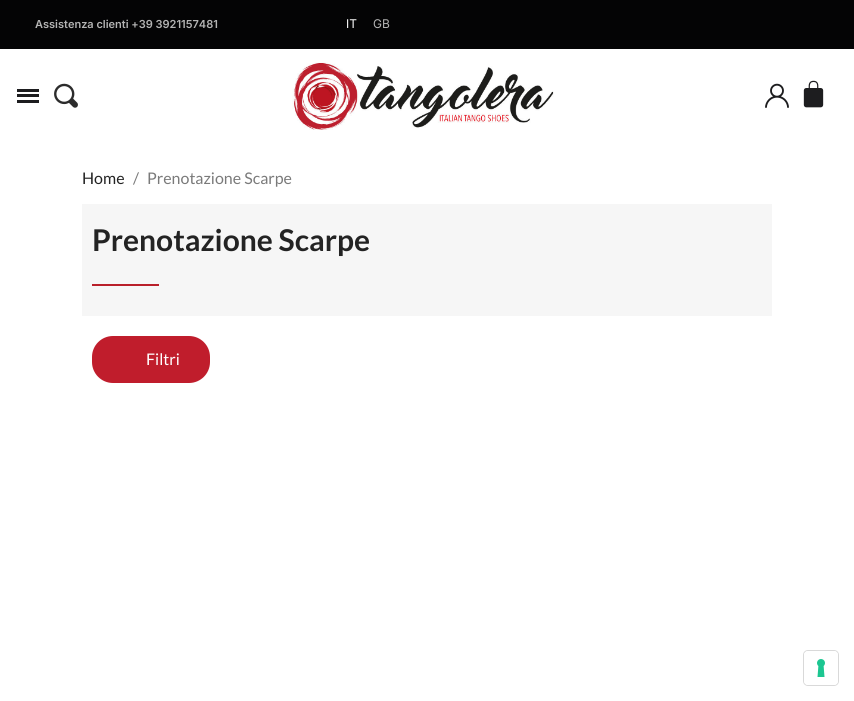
import math
import cairo


def use_color(cr, r, g, b):
  cr.set_source_rgb(r / 255, g / 255, b / 255)

def text(cr, x, y, s, family, size, color, bold=False, italic=False):
  cr.select_font_face(family, cairo.FONT_SLANT_ITALIC if italic else cairo.FONT_SLANT_NORMAL, cairo.FONT_WEIGHT_BOLD if bold else cairo.FONT_WEIGHT_NORMAL)
  cr.set_font_size(size)
  use_color(cr, *color)
  cr.move_to(x, y)
  cr.show_text(s)

def box(cr, x, y, w, h, *color):
  use_color(cr, *color)
  cr.rectangle(x, y, w, h)
  cr.fill()

def round_rect(cr, x, y, w, h, r):
  cr.new_sub_path()
  for i, (u, v) in enumerate([(x + w - r, y + h - r), (x + r, y + h - r), (x + r, y + r), (x + w - r, y + r)]):
    cr.arc(u, v, r, i * math.pi / 2, (i + 1) * math.pi / 2)
  cr.close_path()

def picture(cr, path, x, y, w, h):
  cr.save()
  cr.set_source_surface(cairo.ImageSurface.create_from_png(path), x, y)
  cr.rectangle(x, y, w, h)
  cr.fill()
  cr.restore()

def draw(cr):
  use_color(cr, 255, 255, 255)
  cr.paint()
  box(cr, 0, 0, 854, 49, 4, 4, 5)
  box(cr, 17, 94, 22, 3, 29, 29, 31)
  box(cr, 17, 89, 22, 3, 29, 29, 31)
  box(cr, 17, 100, 22, 3, 29, 29, 31)
  picture(cr, "img_01.png", 54, 83, 24, 25)
  picture(cr, "img_02.png", 292, 62, 262, 68)
  picture(cr, "img_03.png", 765, 83, 24, 25)
  picture(cr, "img_04.png", 803, 80, 21, 28)
  box(cr, 82, 204, 690, 112, 246, 246, 246)
  box(cr, 92, 284, 67, 2, 185, 31, 42)
  use_color(cr, 192, 29, 44)
  round_rect(cr, 92, 336, 118, 47, 21)
  cr.fill()
  round_rect(cr, 803.5, 650.5, 35, 35, 4.5)
  use_color(cr, 217, 217, 217)
  cr.set_line_width(1)
  cr.stroke()
  use_color(cr, 255, 255, 255)
  round_rect(cr, 804, 651, 34, 34, 4)
  cr.fill()
  picture(cr, "img_05.png", 817, 659, 8, 18)
  text(cr, 35, 28, "Assistenza clienti +39 3921157481", "Inter SemiBold", 11, (180, 180, 180))
  text(cr, 346, 28, "IT", "Inter", 12, (255, 255, 255))
  text(cr, 373, 28, "GB", "Inter", 12, (180, 180, 180))
  text(cr, 82, 184, "Home", "Lato", 16, (35, 35, 35))
  text(cr, 133, 184, "/", "Lato", 16, (122, 122, 122))
  text(cr, 147, 184, "Prenotazione Scarpe", "Lato", 16, (122, 122, 122))
  text(cr, 92, 251, "Prenotazione Scarpe", "Lato", 30, (35, 35, 35), bold=True)
  text(cr, 146, 365, "Filtri", "Lato", 16, (255, 255, 255))


surface = cairo.ImageSurface(cairo.FORMAT_RGB24, 854, 701)
cr = cairo.Context(surface)
options = cairo.FontOptions()
options.set_hint_metrics(cairo.HINT_METRICS_OFF)
options.set_hint_style(cairo.HINT_STYLE_NONE)
cr.set_font_options(options)
cr.set_miter_limit(4)
draw(cr)
surface.write_to_png("out.png")
